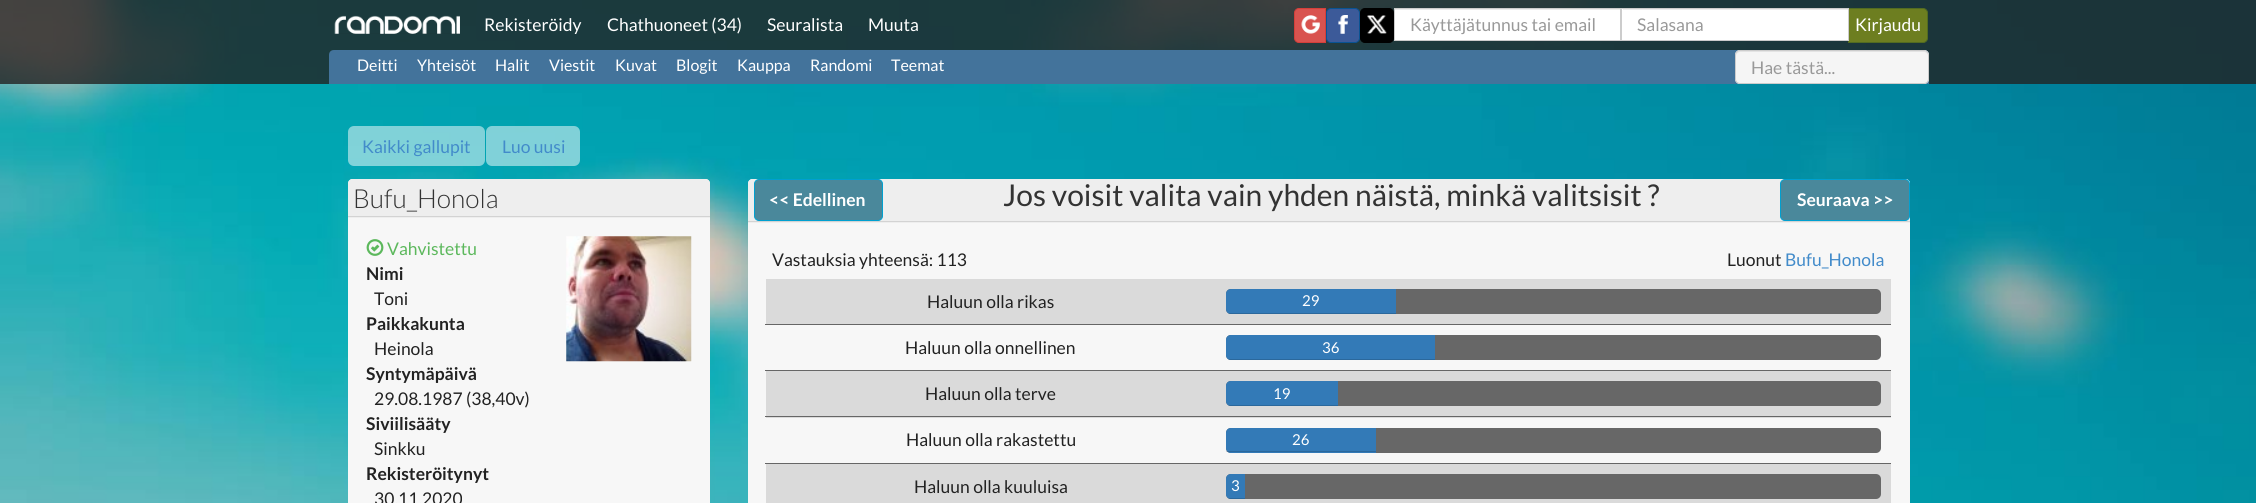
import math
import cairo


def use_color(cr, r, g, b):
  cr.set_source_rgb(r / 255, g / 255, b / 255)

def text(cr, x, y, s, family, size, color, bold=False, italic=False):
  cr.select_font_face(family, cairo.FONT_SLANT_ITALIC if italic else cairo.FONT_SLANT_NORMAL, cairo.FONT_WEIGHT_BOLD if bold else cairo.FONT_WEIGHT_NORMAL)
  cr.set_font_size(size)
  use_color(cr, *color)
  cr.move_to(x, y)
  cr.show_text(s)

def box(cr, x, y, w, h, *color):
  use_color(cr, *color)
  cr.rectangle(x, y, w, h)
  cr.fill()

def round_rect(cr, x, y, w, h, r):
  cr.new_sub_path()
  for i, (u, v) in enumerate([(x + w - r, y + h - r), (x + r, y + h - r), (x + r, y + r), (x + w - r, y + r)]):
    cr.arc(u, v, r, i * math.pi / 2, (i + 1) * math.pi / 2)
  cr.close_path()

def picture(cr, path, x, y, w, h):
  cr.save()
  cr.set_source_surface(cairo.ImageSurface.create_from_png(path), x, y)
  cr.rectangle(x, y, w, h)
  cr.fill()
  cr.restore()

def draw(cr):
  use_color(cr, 255, 255, 255)
  cr.paint()
  picture(cr, "img_01.png", 0, 0, 2256, 503)
  cr.set_source_rgba(0.133, 0.133, 0.133, 0.8)
  cr.rectangle(0, 0, 2256, 84)
  cr.fill()
  picture(cr, "img_02.png", 334, 15, 126, 19)
  use_color(cr, 217, 83, 79)
  cr.new_path()
  cr.move_to(1299, 8.5)
  cr.line_to(1325.5, 8.5)
  cr.line_to(1325.5, 42.5)
  cr.line_to(1299, 42.5)
  cr.curve_to(1296.5, 42.5, 1294.5, 40.5, 1294.5, 38)
  cr.line_to(1294.5, 13)
  cr.curve_to(1294.5, 10.5, 1296.5, 8.5, 1299, 8.5)
  cr.close_path()
  cr.fill_preserve()
  use_color(cr, 212, 63, 58)
  cr.set_line_width(1)
  cr.stroke()
  picture(cr, "img_03.png", 1301, 15, 19, 19)
  use_color(cr, 60, 90, 153)
  round_rect(cr, 1326.5, 8.5, 33, 34, 4.5)
  cr.fill_preserve()
  use_color(cr, 9, 83, 147)
  cr.stroke()
  picture(cr, "img_04.png", 1338, 15, 10, 19)
  use_color(cr, 0, 0, 0)
  round_rect(cr, 1360.5, 8.5, 33, 34, 4.5)
  cr.fill_preserve()
  cr.stroke()
  picture(cr, "img_05.png", 1367, 15, 20, 19)
  box(cr, 1395, 10, 225, 30, 255, 255, 255)
  box(cr, 1395, 9, 225, 1, 236, 236, 236)
  cr.rectangle(1394.5, 8.5, 226, 32)
  use_color(cr, 204, 204, 204)
  cr.stroke()
  box(cr, 1622, 9, 226, 31, 255, 255, 255)
  box(cr, 1623, 9, 225, 1, 236, 236, 236)
  use_color(cr, 109, 126, 32)
  cr.new_path()
  cr.move_to(1848.5, 8.5)
  cr.line_to(1923, 8.5)
  cr.curve_to(1925.5, 8.5, 1927.5, 10.5, 1927.5, 13)
  cr.line_to(1927.5, 38)
  cr.curve_to(1927.5, 40.5, 1925.5, 42.5, 1923, 42.5)
  cr.line_to(1848.5, 42.5)
  cr.close_path()
  cr.fill_preserve()
  use_color(cr, 82, 107, 33)
  cr.stroke()
  cr.rectangle(1621.5, 8.5, 227, 32)
  use_color(cr, 204, 204, 204)
  cr.stroke()
  use_color(cr, 67, 115, 155)
  cr.new_path()
  cr.move_to(334, 50)
  cr.line_to(1924, 50)
  cr.curve_to(1927, 50, 1929, 52, 1929, 55)
  cr.line_to(1929, 84)
  cr.line_to(329, 84)
  cr.line_to(329, 55)
  cr.curve_to(329, 52, 331, 50, 334, 50)
  cr.close_path()
  cr.fill()
  use_color(cr, 245, 245, 245)
  round_rect(cr, 1735, 50, 194, 34, 5)
  cr.fill()
  use_color(cr, 227, 227, 227)
  cr.new_path()
  cr.move_to(1740, 52)
  cr.line_to(1924, 52)
  cr.curve_to(1926, 52, 1928, 54, 1928, 56)
  cr.curve_to(1928, 53, 1927, 51, 1924, 51)
  cr.line_to(1740, 51)
  cr.curve_to(1737, 51, 1736, 53, 1736, 56)
  cr.curve_to(1736, 54, 1738, 52, 1740, 52)
  cr.close_path()
  cr.fill()
  round_rect(cr, 1735.5, 50.5, 193, 33, 4.5)
  use_color(cr, 204, 204, 204)
  cr.stroke()
  cr.set_source_rgba(1, 1, 1, 0.5)
  round_rect(cr, 348, 126, 137, 40, 6)
  cr.fill()
  round_rect(cr, 486, 126, 94, 40, 6)
  cr.fill()
  use_color(cr, 247, 247, 247)
  round_rect(cr, 348, 179, 362, 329, 5)
  cr.fill()
  use_color(cr, 238, 238, 238)
  cr.new_path()
  cr.move_to(352, 179)
  cr.line_to(706, 179)
  cr.curve_to(708, 179, 710, 181, 710, 183)
  cr.line_to(710, 218)
  cr.line_to(348, 218)
  cr.line_to(348, 183)
  cr.curve_to(348, 181, 350, 179, 352, 179)
  cr.close_path()
  cr.fill()
  box(cr, 348, 216, 362, 1, 211, 211, 211)
  picture(cr, "img_06.png", 366, 239, 18, 17)
  picture(cr, "img_07.png", 566, 236, 126, 126)
  use_color(cr, 247, 247, 247)
  round_rect(cr, 748, 179, 1162, 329, 5)
  cr.fill()
  use_color(cr, 238, 238, 238)
  cr.new_path()
  cr.move_to(752, 179)
  cr.line_to(1906, 179)
  cr.curve_to(1908, 179, 1910, 181, 1910, 183)
  cr.line_to(1910, 223)
  cr.line_to(748, 223)
  cr.line_to(748, 183)
  cr.curve_to(748, 181, 750, 179, 752, 179)
  cr.close_path()
  cr.fill()
  box(cr, 748, 221, 1162, 1, 211, 211, 211)
  use_color(cr, 74, 136, 155)
  round_rect(cr, 754.5, 179.5, 128, 41, 4.5)
  cr.fill_preserve()
  use_color(cr, 0, 160, 208)
  cr.stroke()
  use_color(cr, 74, 136, 155)
  round_rect(cr, 1780.5, 179.5, 129, 41, 4.5)
  cr.fill_preserve()
  use_color(cr, 0, 160, 208)
  cr.stroke()
  box(cr, 766, 279, 1125, 45, 218, 218, 218)
  use_color(cr, 103, 103, 103)
  round_rect(cr, 1226, 289, 655, 25, 5)
  cr.fill()
  use_color(cr, 51, 122, 183)
  cr.new_path()
  cr.move_to(1231, 289)
  cr.line_to(1396, 289)
  cr.line_to(1396, 314)
  cr.line_to(1231, 314)
  cr.curve_to(1228, 314, 1226, 312, 1226, 309)
  cr.line_to(1226, 294)
  cr.curve_to(1226, 291, 1228, 289, 1231, 289)
  cr.close_path()
  cr.fill()
  cr.save()
  round_rect(cr, 1226, 289, 655, 25, 5)
  cr.clip()
  cr.set_source_rgba(0, 0, 0, 0.15)
  cr.rectangle(1226, 313, 170, 1)
  cr.fill()
  cr.restore()
  box(cr, 765, 324, 1126, 1, 102, 102, 102)
  use_color(cr, 103, 103, 103)
  round_rect(cr, 1226, 335, 655, 25, 5)
  cr.fill()
  use_color(cr, 51, 122, 183)
  cr.new_path()
  cr.move_to(1231, 335)
  cr.line_to(1435, 335)
  cr.line_to(1435, 360)
  cr.line_to(1231, 360)
  cr.curve_to(1228, 360, 1226, 358, 1226, 355)
  cr.line_to(1226, 340)
  cr.curve_to(1226, 337, 1228, 335, 1231, 335)
  cr.close_path()
  cr.fill()
  cr.save()
  round_rect(cr, 1226, 335, 655, 25, 5)
  cr.clip()
  cr.set_source_rgba(0, 0, 0, 0.15)
  cr.rectangle(1226, 359, 209, 1)
  cr.fill()
  cr.restore()
  box(cr, 766, 371, 1125, 47, 218, 218, 218)
  box(cr, 765, 370, 1126, 1, 102, 102, 102)
  use_color(cr, 103, 103, 103)
  round_rect(cr, 1226, 381, 655, 25, 5)
  cr.fill()
  use_color(cr, 51, 122, 183)
  cr.new_path()
  cr.move_to(1231, 381)
  cr.line_to(1338, 381)
  cr.line_to(1338, 406)
  cr.line_to(1231, 406)
  cr.curve_to(1228, 406, 1226, 404, 1226, 401)
  cr.line_to(1226, 386)
  cr.curve_to(1226, 383, 1228, 381, 1231, 381)
  cr.close_path()
  cr.fill()
  cr.save()
  round_rect(cr, 1226, 381, 655, 25, 5)
  cr.clip()
  cr.set_source_rgba(0, 0, 0, 0.15)
  cr.rectangle(1226, 405, 112, 1)
  cr.fill()
  cr.restore()
  box(cr, 765, 416, 1126, 1, 102, 102, 102)
  use_color(cr, 103, 103, 103)
  round_rect(cr, 1226, 428, 655, 25, 5)
  cr.fill()
  use_color(cr, 51, 122, 183)
  cr.new_path()
  cr.move_to(1231, 428)
  cr.line_to(1376, 428)
  cr.line_to(1376, 453)
  cr.line_to(1231, 453)
  cr.curve_to(1228, 453, 1226, 451, 1226, 448)
  cr.line_to(1226, 433)
  cr.curve_to(1226, 430, 1228, 428, 1231, 428)
  cr.close_path()
  cr.fill()
  cr.set_source_rgba(0, 0, 0, 0.15)
  cr.rectangle(1226, 451, 150, 1)
  cr.fill()
  box(cr, 766, 464, 1125, 39, 218, 218, 218)
  box(cr, 765, 463, 1126, 1, 102, 102, 102)
  use_color(cr, 103, 103, 103)
  round_rect(cr, 1226, 474, 655, 25, 5)
  cr.fill()
  use_color(cr, 51, 122, 183)
  cr.new_path()
  cr.move_to(1231, 474)
  cr.line_to(1245, 474)
  cr.line_to(1245, 499)
  cr.line_to(1231, 499)
  cr.curve_to(1228, 499, 1226, 497, 1226, 494)
  cr.line_to(1226, 479)
  cr.curve_to(1226, 476, 1228, 474, 1231, 474)
  cr.close_path()
  cr.fill()
  cr.save()
  round_rect(cr, 1226, 474, 655, 25, 5)
  cr.clip()
  cr.set_source_rgba(0, 0, 0, 0.15)
  cr.rectangle(1226, 498, 19, 1)
  cr.fill()
  cr.restore()
  text(cr, 484, 31, "Rekisteröidy", "Lato", 17.5, (255, 255, 255))
  text(cr, 607, 31, "Chathuoneet (34)", "Lato", 17.5, (255, 255, 255))
  text(cr, 767, 31, "Seuralista", "Lato", 17.5, (255, 255, 255))
  text(cr, 868, 31, "Muuta", "Lato", 17.5, (255, 255, 255))
  text(cr, 1410, 31, "Käyttäjätunnus tai email", "Lato", 17.5, (153, 153, 153))
  text(cr, 1637, 31, "Salasana", "Lato", 17.5, (153, 153, 153))
  text(cr, 1855, 31, "Kirjaudu", "Lato", 17.5, (255, 255, 255))
  text(cr, 357, 71, "Deitti", "Lato", 16, (255, 255, 255))
  text(cr, 417, 71, "Yhteisöt", "Lato", 16, (255, 255, 255))
  text(cr, 495, 71, "Halit", "Lato", 16, (255, 255, 255))
  text(cr, 549, 71, "Viestit", "Lato", 16, (255, 255, 255))
  text(cr, 615, 71, "Kuvat", "Lato", 16, (255, 255, 255))
  text(cr, 676, 71, "Blogit", "Lato", 16, (255, 255, 255))
  text(cr, 737, 71, "Kauppa", "Lato", 16, (255, 255, 255))
  text(cr, 810, 71, "Randomi", "Lato", 16, (255, 255, 255))
  text(cr, 891, 71, "Teemat", "Lato", 16, (255, 255, 255))
  text(cr, 1751, 74, "Hae tästä...", "Lato", 17.5, (153, 153, 153))
  text(cr, 362, 153, "Kaikki gallupit", "Lato", 17.5, (66, 139, 202))
  text(cr, 502, 153, "Luo uusi", "Lato", 17.5, (66, 139, 202))
  text(cr, 353, 208, "Bufu_Honola", "Lato Light", 26.25, (51, 51, 51))
  text(cr, 387, 255, "Vahvistettu", "Lato", 17.5, (92, 184, 92))
  text(cr, 366, 280, "Nimi", "Lato", 17.5, (34, 34, 34), bold=True)
  text(cr, 374, 305, "Toni", "Lato", 17.5, (34, 34, 34))
  text(cr, 366, 330, "Paikkakunta", "Lato", 17.5, (34, 34, 34), bold=True)
  text(cr, 374, 355, "Heinola", "Lato", 17.5, (34, 34, 34))
  text(cr, 366, 380, "Syntymäpäivä", "Lato", 17.5, (34, 34, 34), bold=True)
  text(cr, 374, 405, "29.08.1987 (38,40v)", "Lato", 17.5, (34, 34, 34))
  text(cr, 366, 430, "Siviilisääty", "Lato", 17.5, (34, 34, 34), bold=True)
  text(cr, 374, 455, "Sinkku", "Lato", 17.5, (34, 34, 34))
  text(cr, 366, 480, "Rekisteröitynyt", "Lato", 17.5, (34, 34, 34), bold=True)
  text(cr, 374, 505, "30.11.2020", "Lato", 17.5, (34, 34, 34))
  text(cr, 769, 206, "<< Edellinen", "Lato", 17.5, (255, 255, 255), bold=True)
  text(cr, 1003, 206, "Jos voisit valita vain yhden näistä, minkä valitsisit ?", "Lato", 30, (51, 51, 51))
  text(cr, 1797, 206, "Seuraava >>", "Lato", 17.5, (255, 255, 255), bold=True)
  text(cr, 772, 266, "Vastauksia yhteensä: 113", "Lato", 17.5, (34, 34, 34))
  text(cr, 927, 308, "Haluun olla rikas", "Lato", 17.5, (34, 34, 34))
  text(cr, 1302, 306, "29", "Lato", 15, (255, 255, 255))
  text(cr, 905, 354, "Haluun olla onnellinen", "Lato", 17.5, (34, 34, 34))
  text(cr, 1322, 353, "36", "Lato", 15, (255, 255, 255))
  text(cr, 925, 400, "Haluun olla terve", "Lato", 17.5, (34, 34, 34))
  text(cr, 1273, 399, "19", "Lato", 15, (255, 255, 255))
  text(cr, 906, 446, "Haluun olla rakastettu", "Lato", 17.5, (34, 34, 34))
  text(cr, 1292, 445, "26", "Lato", 15, (255, 255, 255))
  text(cr, 914, 493, "Haluun olla kuuluisa", "Lato", 17.5, (34, 34, 34))
  text(cr, 1231, 491, "3", "Lato", 15, (255, 255, 255))
  text(cr, 1727, 266, "Luonut", "Lato", 17.5, (34, 34, 34))
  text(cr, 1785, 266, "Bufu_Honola", "Lato", 17.5, (66, 139, 202))


surface = cairo.ImageSurface(cairo.FORMAT_RGB24, 2256, 503)
cr = cairo.Context(surface)
options = cairo.FontOptions()
options.set_hint_metrics(cairo.HINT_METRICS_OFF)
options.set_hint_style(cairo.HINT_STYLE_NONE)
cr.set_font_options(options)
cr.set_miter_limit(4)
draw(cr)
surface.write_to_png("out.png")
